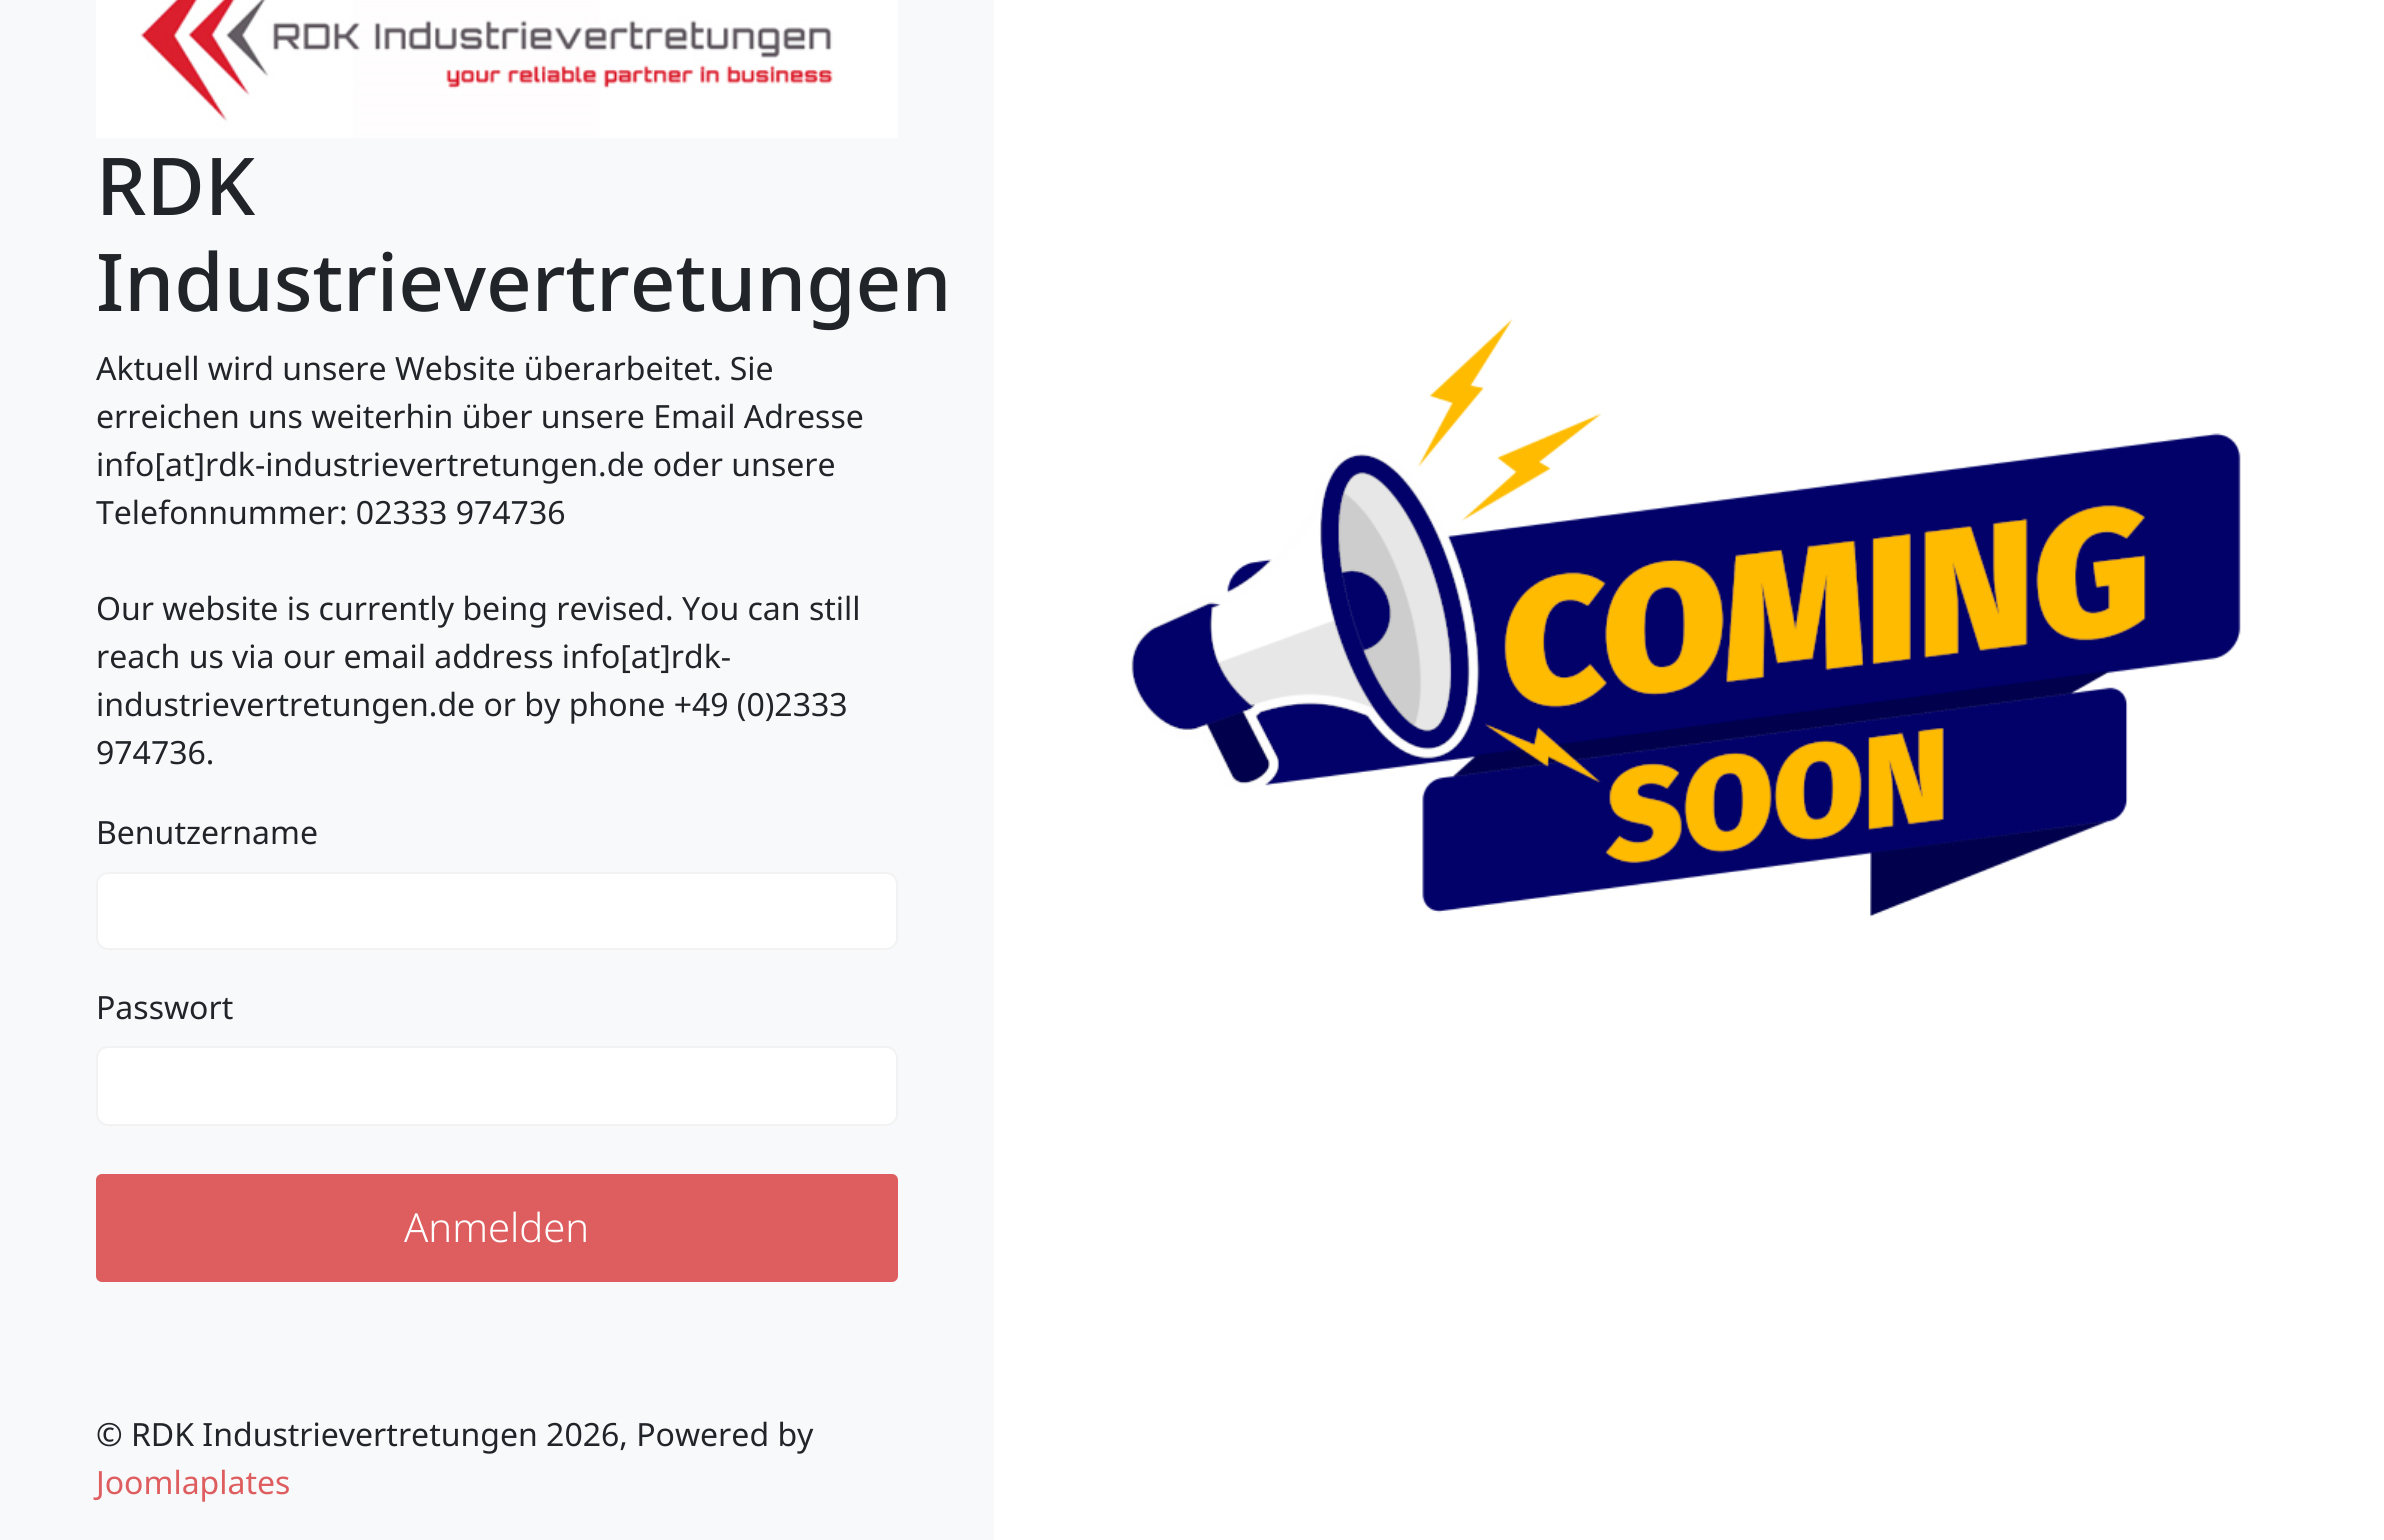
import math
import cairo


def use_color(cr, r, g, b):
  cr.set_source_rgb(r / 255, g / 255, b / 255)

def text(cr, x, y, s, family, size, color, bold=False, italic=False):
  cr.select_font_face(family, cairo.FONT_SLANT_ITALIC if italic else cairo.FONT_SLANT_NORMAL, cairo.FONT_WEIGHT_BOLD if bold else cairo.FONT_WEIGHT_NORMAL)
  cr.set_font_size(size)
  use_color(cr, *color)
  cr.move_to(x, y)
  cr.show_text(s)

def box(cr, x, y, w, h, *color):
  use_color(cr, *color)
  cr.rectangle(x, y, w, h)
  cr.fill()

def round_rect(cr, x, y, w, h, r):
  cr.new_sub_path()
  for i, (u, v) in enumerate([(x + w - r, y + h - r), (x + r, y + h - r), (x + r, y + r), (x + w - r, y + r)]):
    cr.arc(u, v, r, i * math.pi / 2, (i + 1) * math.pi / 2)
  cr.close_path()

def picture(cr, path, x, y, w, h):
  cr.save()
  cr.set_source_surface(cairo.ImageSurface.create_from_png(path), x, y)
  cr.rectangle(x, y, w, h)
  cr.fill()
  cr.restore()

def draw(cr):
  use_color(cr, 255, 255, 255)
  cr.paint()
  box(cr, 0, 0, 994, 1540, 248, 249, 250)
  picture(cr, "img_01.png", 96, 0, 802, 138)
  use_color(cr, 255, 255, 255)
  round_rect(cr, 97, 873, 800, 76, 11)
  cr.fill_preserve()
  use_color(cr, 242, 242, 242)
  cr.stroke()
  use_color(cr, 255, 255, 255)
  round_rect(cr, 97, 1047, 800, 78, 11)
  cr.fill_preserve()
  use_color(cr, 242, 242, 242)
  cr.stroke()
  use_color(cr, 222, 94, 96)
  round_rect(cr, 97, 1175, 800, 106, 5)
  cr.fill_preserve()
  cr.stroke()
  picture(cr, "img_02.png", 1131, 319, 1110, 598)
  text(cr, 96, 215, "RDK", "Noto Sans Medium", 79.75, (33, 37, 41))
  text(cr, 96, 311, "Industrievertretungen", "Noto Sans Medium", 79.75, (33, 37, 41))
  text(cr, 96, 380, "Aktuell wird unsere Website überarbeitet. Sie", "Noto Sans", 32, (33, 37, 41))
  text(cr, 96, 428, "erreichen uns weiterhin über unsere Email Adresse", "Noto Sans", 32, (33, 37, 41))
  text(cr, 96, 476, "info[at]rdk-industrievertretungen.de oder unsere", "Noto Sans", 32, (33, 37, 41))
  text(cr, 96, 524, "Telefonnummer: 02333 974736", "Noto Sans", 32, (33, 37, 41))
  text(cr, 96, 620, "Our website is currently being revised. You can still", "Noto Sans", 32, (33, 37, 41))
  text(cr, 96, 668, "reach us via our email address info[at]rdk-", "Noto Sans", 32, (33, 37, 41))
  text(cr, 96, 716, "industrievertretungen.de or by phone +49 (0)2333", "Noto Sans", 32, (33, 37, 41))
  text(cr, 96, 764, "974736.", "Noto Sans", 32, (33, 37, 41))
  text(cr, 96, 844, "Benutzername", "Noto Sans", 32, (33, 37, 41))
  text(cr, 96, 1019, "Passwort", "Noto Sans", 32, (33, 37, 41))
  text(cr, 404, 1242, "Anmelden", "Noto Sans Light", 40, (255, 255, 255))
  text(cr, 96, 1446, "© RDK Industrievertretungen 2026, Powered by", "Noto Sans", 32, (33, 37, 41))
  text(cr, 96, 1494, "Joomlaplates", "Noto Sans", 32, (222, 94, 96))


surface = cairo.ImageSurface(cairo.FORMAT_RGB24, 2384, 1540)
cr = cairo.Context(surface)
options = cairo.FontOptions()
options.set_hint_metrics(cairo.HINT_METRICS_OFF)
options.set_hint_style(cairo.HINT_STYLE_NONE)
cr.set_font_options(options)
cr.set_miter_limit(4)
draw(cr)
surface.write_to_png("out.png")
